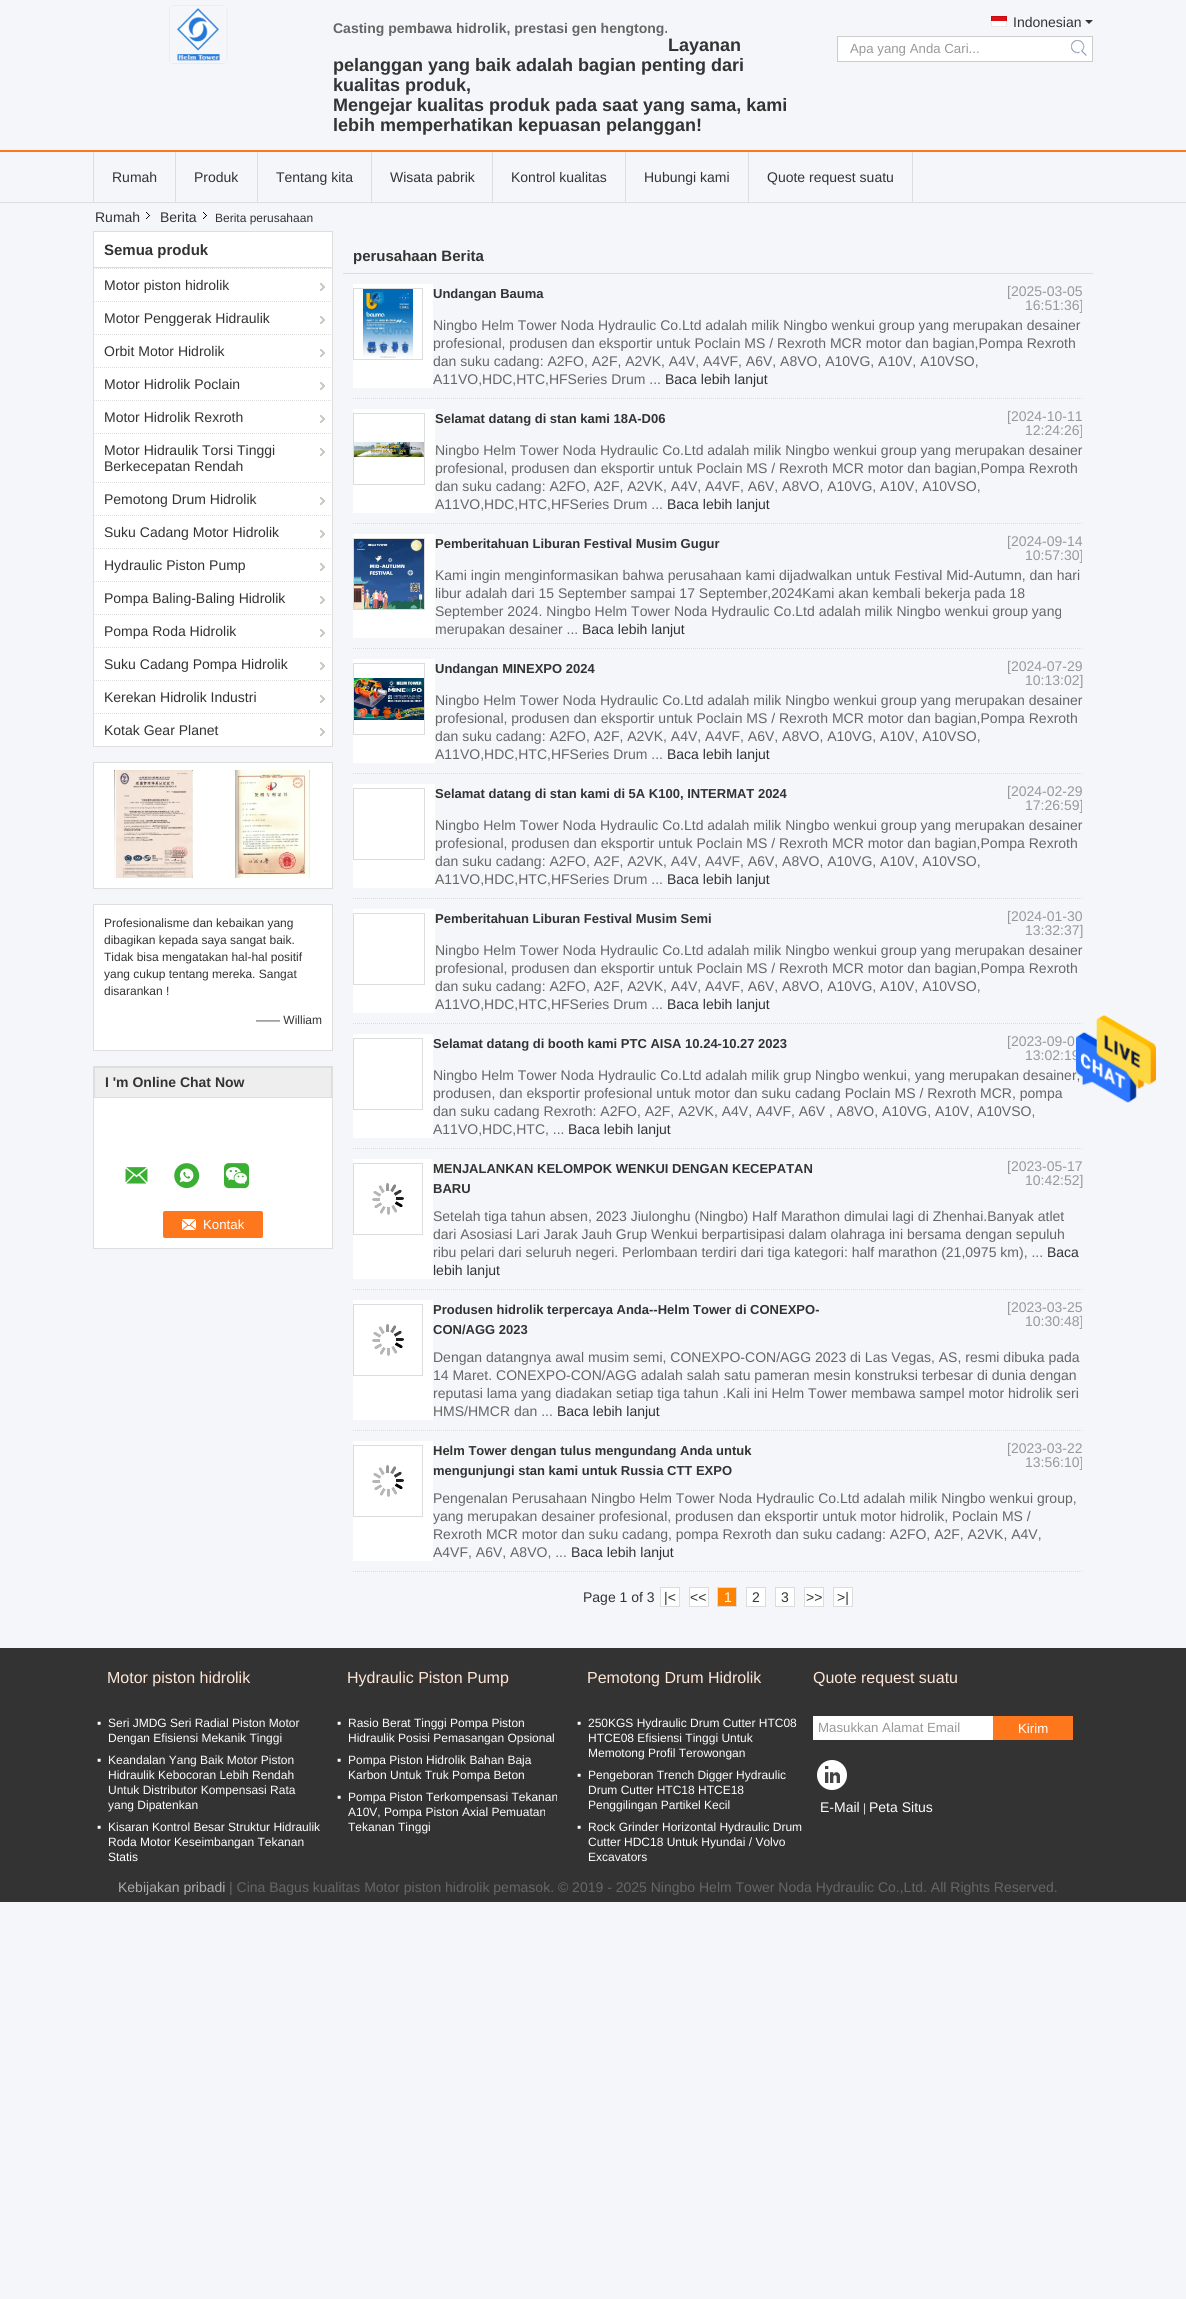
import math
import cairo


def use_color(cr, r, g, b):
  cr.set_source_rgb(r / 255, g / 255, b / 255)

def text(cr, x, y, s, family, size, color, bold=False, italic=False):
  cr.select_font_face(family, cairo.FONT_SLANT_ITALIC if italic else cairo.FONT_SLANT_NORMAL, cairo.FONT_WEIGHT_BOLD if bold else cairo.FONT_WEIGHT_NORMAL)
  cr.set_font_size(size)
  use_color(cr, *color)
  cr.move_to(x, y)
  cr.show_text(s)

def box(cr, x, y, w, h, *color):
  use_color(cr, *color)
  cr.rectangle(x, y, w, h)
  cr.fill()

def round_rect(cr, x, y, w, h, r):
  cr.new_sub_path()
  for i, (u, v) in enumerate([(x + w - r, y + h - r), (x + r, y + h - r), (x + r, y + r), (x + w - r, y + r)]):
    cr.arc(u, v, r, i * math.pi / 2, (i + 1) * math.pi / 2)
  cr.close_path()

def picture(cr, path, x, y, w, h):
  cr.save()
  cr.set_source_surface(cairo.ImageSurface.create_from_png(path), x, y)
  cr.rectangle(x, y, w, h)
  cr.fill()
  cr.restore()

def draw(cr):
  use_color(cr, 244, 246, 249)
  cr.paint()
  box(cr, 0, 150, 1186, 2, 255, 119, 28)
  picture(cr, "img_01.png", 169, 5, 59, 59)
  picture(cr, "img_02.png", 991, 16, 16, 11)
  use_color(cr, 51, 51, 51)
  cr.new_path()
  cr.move_to(1085, 20)
  cr.line_to(1093, 20)
  cr.line_to(1089, 24)
  cr.close_path()
  cr.fill()
  box(cr, 838, 37, 254, 24, 255, 255, 255)
  box(cr, 837, 36, 256, 1, 204, 204, 204)
  box(cr, 837, 61, 231, 1, 204, 204, 204)
  box(cr, 837, 36, 1, 26, 204, 204, 204)
  picture(cr, "img_03.png", 1071, 40, 16, 16)
  box(cr, 1092, 36, 1, 26, 204, 204, 204)
  box(cr, 1068, 61, 25, 1, 204, 204, 204)
  box(cr, 0, 202, 1186, 1, 222, 222, 222)
  box(cr, 93, 152, 1, 50, 222, 222, 222)
  box(cr, 175, 152, 1, 50, 222, 222, 222)
  box(cr, 257, 152, 1, 50, 222, 222, 222)
  box(cr, 371, 152, 1, 50, 222, 222, 222)
  box(cr, 492, 152, 1, 50, 222, 222, 222)
  box(cr, 625, 152, 1, 50, 222, 222, 222)
  box(cr, 912, 152, 1, 50, 222, 222, 222)
  box(cr, 748, 152, 1, 50, 222, 222, 222)
  picture(cr, "img_04.png", 146, 212, 5, 7)
  picture(cr, "img_05.png", 203, 212, 4, 7)
  use_color(cr, 255, 255, 255)
  cr.rectangle(93.5, 231.5, 239, 515)
  cr.fill_preserve()
  use_color(cr, 222, 222, 222)
  cr.set_line_width(1)
  cr.stroke()
  box(cr, 94, 267, 238, 1, 222, 222, 222)
  picture(cr, "img_06.png", 320, 283, 5, 8)
  cr.new_path()
  cr.move_to(94, 268.5)
  cr.line_to(332, 268.5)
  cr.set_dash([1, 1])
  cr.stroke()
  picture(cr, "img_06.png", 320, 316, 5, 8)
  cr.new_path()
  cr.move_to(94, 301.5)
  cr.line_to(332, 301.5)
  cr.stroke()
  picture(cr, "img_06.png", 320, 349, 5, 8)
  cr.new_path()
  cr.move_to(94, 334.5)
  cr.line_to(332, 334.5)
  cr.stroke()
  picture(cr, "img_06.png", 320, 382, 5, 8)
  cr.new_path()
  cr.move_to(94, 367.5)
  cr.line_to(332, 367.5)
  cr.stroke()
  picture(cr, "img_06.png", 320, 415, 5, 8)
  cr.new_path()
  cr.move_to(94, 400.5)
  cr.line_to(332, 400.5)
  cr.stroke()
  picture(cr, "img_06.png", 320, 448, 5, 8)
  cr.new_path()
  cr.move_to(94, 433.5)
  cr.line_to(332, 433.5)
  cr.stroke()
  picture(cr, "img_06.png", 320, 497, 5, 8)
  cr.new_path()
  cr.move_to(94, 482.5)
  cr.line_to(332, 482.5)
  cr.stroke()
  picture(cr, "img_06.png", 320, 530, 5, 8)
  cr.new_path()
  cr.move_to(94, 515.5)
  cr.line_to(332, 515.5)
  cr.stroke()
  picture(cr, "img_06.png", 320, 563, 5, 8)
  cr.new_path()
  cr.move_to(94, 548.5)
  cr.line_to(332, 548.5)
  cr.stroke()
  picture(cr, "img_06.png", 320, 596, 5, 8)
  cr.new_path()
  cr.move_to(94, 581.5)
  cr.line_to(332, 581.5)
  cr.stroke()
  picture(cr, "img_06.png", 320, 629, 5, 8)
  cr.new_path()
  cr.move_to(94, 614.5)
  cr.line_to(332, 614.5)
  cr.stroke()
  picture(cr, "img_06.png", 320, 662, 5, 8)
  cr.new_path()
  cr.move_to(94, 647.5)
  cr.line_to(332, 647.5)
  cr.stroke()
  picture(cr, "img_06.png", 320, 695, 5, 8)
  cr.new_path()
  cr.move_to(94, 680.5)
  cr.line_to(332, 680.5)
  cr.stroke()
  picture(cr, "img_06.png", 320, 728, 5, 8)
  cr.new_path()
  cr.move_to(94, 713.5)
  cr.line_to(332, 713.5)
  cr.stroke()
  use_color(cr, 255, 255, 255)
  cr.rectangle(93.5, 762.5, 239, 126)
  cr.fill_preserve()
  use_color(cr, 222, 222, 222)
  cr.set_dash([])
  cr.stroke()
  picture(cr, "img_07.png", 114, 770, 79, 108)
  picture(cr, "img_08.png", 235, 770, 75, 108)
  use_color(cr, 255, 255, 255)
  cr.rectangle(93.5, 904.5, 239, 146)
  cr.fill_preserve()
  use_color(cr, 222, 222, 222)
  cr.stroke()
  box(cr, 94, 1098, 238, 150, 255, 255, 255)
  cr.rectangle(93.5, 1066.5, 239, 182)
  use_color(cr, 222, 222, 222)
  cr.stroke()
  use_color(cr, 238, 238, 238)
  cr.rectangle(94.5, 1067.5, 237, 30)
  cr.fill_preserve()
  use_color(cr, 222, 222, 222)
  cr.stroke()
  picture(cr, "img_09.png", 125, 1167, 23, 17)
  picture(cr, "img_10.png", 174, 1163, 26, 26)
  picture(cr, "img_11.png", 224, 1163, 25, 26)
  use_color(cr, 255, 119, 28)
  round_rect(cr, 163, 1211, 100, 27, 2)
  cr.fill()
  picture(cr, "img_12.png", 182, 1219, 14, 11)
  box(cr, 343, 273, 750, 1, 222, 222, 222)
  cr.new_path()
  cr.move_to(353, 398.5)
  cr.line_to(1083, 398.5)
  use_color(cr, 220, 220, 220)
  cr.set_dash([1, 1])
  cr.stroke()
  box(cr, 353, 284, 80, 104, 255, 255, 255)
  cr.rectangle(353.5, 288.5, 69, 71)
  use_color(cr, 220, 220, 220)
  cr.set_dash([])
  cr.stroke()
  picture(cr, "img_13.png", 363, 289, 50, 69)
  cr.new_path()
  cr.move_to(353, 523.5)
  cr.line_to(1083, 523.5)
  cr.set_dash([1, 1])
  cr.stroke()
  box(cr, 353, 409, 82, 104, 255, 255, 255)
  cr.rectangle(353.5, 413.5, 71, 71)
  use_color(cr, 220, 220, 220)
  cr.set_dash([])
  cr.stroke()
  picture(cr, "img_14.png", 354, 442, 70, 15)
  cr.new_path()
  cr.move_to(353, 648.5)
  cr.line_to(1083, 648.5)
  cr.set_dash([1, 1])
  cr.stroke()
  box(cr, 353, 534, 82, 104, 255, 255, 255)
  cr.rectangle(353.5, 538.5, 71, 71)
  use_color(cr, 220, 220, 220)
  cr.set_dash([])
  cr.stroke()
  picture(cr, "img_15.png", 354, 539, 70, 70)
  cr.new_path()
  cr.move_to(353, 773.5)
  cr.line_to(1083, 773.5)
  cr.set_dash([1, 1])
  cr.stroke()
  box(cr, 353, 659, 82, 104, 255, 255, 255)
  cr.rectangle(353.5, 663.5, 71, 71)
  use_color(cr, 220, 220, 220)
  cr.set_dash([])
  cr.stroke()
  picture(cr, "img_16.png", 354, 678, 70, 42)
  cr.new_path()
  cr.move_to(353, 898.5)
  cr.line_to(1083, 898.5)
  cr.set_dash([1, 1])
  cr.stroke()
  box(cr, 353, 784, 82, 104, 255, 255, 255)
  cr.rectangle(353.5, 788.5, 71, 71)
  use_color(cr, 220, 220, 220)
  cr.set_dash([])
  cr.stroke()
  cr.new_path()
  cr.move_to(353, 1023.5)
  cr.line_to(1083, 1023.5)
  cr.set_dash([1, 1])
  cr.stroke()
  box(cr, 353, 909, 82, 104, 255, 255, 255)
  cr.rectangle(353.5, 913.5, 71, 71)
  use_color(cr, 220, 220, 220)
  cr.set_dash([])
  cr.stroke()
  cr.new_path()
  cr.move_to(353, 1148.5)
  cr.line_to(1083, 1148.5)
  cr.set_dash([1, 1])
  cr.stroke()
  box(cr, 353, 1034, 80, 104, 255, 255, 255)
  cr.rectangle(353.5, 1038.5, 69, 71)
  use_color(cr, 220, 220, 220)
  cr.set_dash([])
  cr.stroke()
  cr.new_path()
  cr.move_to(353, 1289.5)
  cr.line_to(1083, 1289.5)
  cr.set_dash([1, 1])
  cr.stroke()
  box(cr, 353, 1159, 80, 120, 255, 255, 255)
  cr.rectangle(353.5, 1163.5, 69, 71)
  use_color(cr, 220, 220, 220)
  cr.set_dash([])
  cr.stroke()
  picture(cr, "img_17.png", 372, 1183, 32, 32)
  cr.new_path()
  cr.move_to(353, 1430.5)
  cr.line_to(1083, 1430.5)
  cr.set_dash([1, 1])
  cr.stroke()
  box(cr, 353, 1300, 80, 120, 255, 255, 255)
  cr.rectangle(353.5, 1304.5, 69, 71)
  use_color(cr, 220, 220, 220)
  cr.set_dash([])
  cr.stroke()
  picture(cr, "img_17.png", 372, 1324, 32, 32)
  cr.new_path()
  cr.move_to(353, 1571.5)
  cr.line_to(1083, 1571.5)
  cr.set_dash([1, 1])
  cr.stroke()
  box(cr, 353, 1441, 80, 120, 255, 255, 255)
  cr.rectangle(353.5, 1445.5, 69, 71)
  use_color(cr, 220, 220, 220)
  cr.set_dash([])
  cr.stroke()
  picture(cr, "img_17.png", 372, 1465, 32, 32)
  use_color(cr, 255, 255, 255)
  cr.rectangle(660.5, 1587.5, 19, 19)
  cr.fill_preserve()
  use_color(cr, 220, 220, 220)
  cr.stroke()
  use_color(cr, 255, 255, 255)
  cr.rectangle(689.5, 1587.5, 19, 19)
  cr.fill_preserve()
  use_color(cr, 220, 220, 220)
  cr.stroke()
  use_color(cr, 255, 131, 3)
  cr.rectangle(717.5, 1587.5, 19, 19)
  cr.fill_preserve()
  use_color(cr, 220, 220, 220)
  cr.stroke()
  use_color(cr, 255, 255, 255)
  cr.rectangle(746.5, 1587.5, 19, 19)
  cr.fill_preserve()
  use_color(cr, 220, 220, 220)
  cr.stroke()
  use_color(cr, 255, 255, 255)
  cr.rectangle(775.5, 1587.5, 19, 19)
  cr.fill_preserve()
  use_color(cr, 220, 220, 220)
  cr.stroke()
  use_color(cr, 255, 255, 255)
  cr.rectangle(804.5, 1587.5, 19, 19)
  cr.fill_preserve()
  use_color(cr, 220, 220, 220)
  cr.stroke()
  use_color(cr, 255, 255, 255)
  cr.rectangle(833.5, 1587.5, 19, 19)
  cr.fill_preserve()
  use_color(cr, 220, 220, 220)
  cr.stroke()
  box(cr, 0, 1648, 1186, 254, 51, 51, 51)
  box(cr, 813, 1716, 180, 24, 255, 255, 255)
  box(cr, 993, 1716, 80, 24, 255, 119, 28)
  picture(cr, "img_19.png", 817, 1760, 30, 30)
  text(cr, 333, 33, "Casting pembawa hidrolik, prestasi gen hengtong.", "Liberation Sans", 14, (102, 102, 102), bold=True)
  text(cr, 668, 51, "Layanan", "Liberation Sans", 18, (51, 51, 51), bold=True)
  text(cr, 333, 71, "pelanggan yang baik adalah bagian penting dari", "Liberation Sans", 18, (51, 51, 51), bold=True)
  text(cr, 333, 91, "kualitas produk,", "Liberation Sans", 18, (51, 51, 51), bold=True)
  text(cr, 333, 111, "Mengejar kualitas produk pada saat yang sama, kami", "Liberation Sans", 18, (51, 51, 51), bold=True)
  text(cr, 333, 131, "lebih memperhatikan kepuasan pelanggan!", "Liberation Sans", 18, (51, 51, 51), bold=True)
  text(cr, 1013, 27, "Indonesian", "Liberation Sans", 14, (51, 51, 51))
  text(cr, 850, 53, "Apa yang Anda Cari...", "Liberation Sans", 13.25, (153, 153, 153))
  text(cr, 112, 182, "Rumah", "Liberation Sans", 14, (51, 51, 51))
  text(cr, 194, 182, "Produk", "Liberation Sans", 14, (51, 51, 51))
  text(cr, 276, 182, "Tentang kita", "Liberation Sans", 14, (51, 51, 51))
  text(cr, 390, 182, "Wisata pabrik", "Liberation Sans", 14, (51, 51, 51))
  text(cr, 511, 182, "Kontrol kualitas", "Liberation Sans", 14, (51, 51, 51))
  text(cr, 644, 182, "Hubungi kami", "Liberation Sans", 14, (51, 51, 51))
  text(cr, 767, 182, "Quote request suatu", "Liberation Sans", 14, (51, 51, 51))
  text(cr, 95, 222, "Rumah", "Liberation Sans", 14, (51, 51, 51))
  text(cr, 160, 222, "Berita", "Liberation Sans", 14, (51, 51, 51))
  text(cr, 215, 222, "Berita perusahaan", "Liberation Sans", 12, (51, 51, 51))
  text(cr, 104, 255, "Semua produk", "Liberation Sans", 15, (51, 51, 51), bold=True)
  text(cr, 104, 290, "Motor piston hidrolik", "Liberation Sans", 14, (51, 51, 51))
  text(cr, 104, 323, "Motor Penggerak Hidraulik", "Liberation Sans", 14, (51, 51, 51))
  text(cr, 104, 356, "Orbit Motor Hidrolik", "Liberation Sans", 14, (51, 51, 51))
  text(cr, 104, 389, "Motor Hidrolik Poclain", "Liberation Sans", 14, (51, 51, 51))
  text(cr, 104, 422, "Motor Hidrolik Rexroth", "Liberation Sans", 14, (51, 51, 51))
  text(cr, 104, 455, "Motor Hidraulik Torsi Tinggi", "Liberation Sans", 14, (51, 51, 51))
  text(cr, 104, 471, "Berkecepatan Rendah", "Liberation Sans", 14, (51, 51, 51))
  text(cr, 104, 504, "Pemotong Drum Hidrolik", "Liberation Sans", 14, (51, 51, 51))
  text(cr, 104, 537, "Suku Cadang Motor Hidrolik", "Liberation Sans", 14, (51, 51, 51))
  text(cr, 104, 570, "Hydraulic Piston Pump", "Liberation Sans", 14, (51, 51, 51))
  text(cr, 104, 603, "Pompa Baling-Baling Hidrolik", "Liberation Sans", 14, (51, 51, 51))
  text(cr, 104, 636, "Pompa Roda Hidrolik", "Liberation Sans", 14, (51, 51, 51))
  text(cr, 104, 669, "Suku Cadang Pompa Hidrolik", "Liberation Sans", 14, (51, 51, 51))
  text(cr, 104, 702, "Kerekan Hidrolik Industri", "Liberation Sans", 14, (51, 51, 51))
  text(cr, 104, 735, "Kotak Gear Planet", "Liberation Sans", 14, (51, 51, 51))
  text(cr, 104, 927, "Profesionalisme dan kebaikan yang", "Liberation Sans", 12, (51, 51, 51))
  text(cr, 104, 944, "dibagikan kepada saya sangat baik.", "Liberation Sans", 12, (51, 51, 51))
  text(cr, 104, 961, "Tidak bisa mengatakan hal-hal positif", "Liberation Sans", 12, (51, 51, 51))
  text(cr, 104, 978, "yang cukup tentang mereka. Sangat", "Liberation Sans", 12, (51, 51, 51))
  text(cr, 104, 995, "disarankan !", "Liberation Sans", 12, (51, 51, 51))
  text(cr, 256, 1024, "—— William", "Liberation Sans", 12, (51, 51, 51))
  text(cr, 105, 1087, "I 'm Online Chat Now", "Liberation Sans", 14, (51, 51, 51), bold=True)
  text(cr, 203, 1229, "Kontak", "Liberation Sans", 13.25, (255, 255, 255))
  text(cr, 353, 261, "perusahaan Berita", "Liberation Sans", 15, (51, 51, 51), bold=True)
  text(cr, 433, 298, "Undangan Bauma", "Liberation Sans", 13, (51, 51, 51), bold=True)
  text(cr, 1007, 296, "[2025-03-05", "Liberation Sans", 14, (153, 153, 153))
  text(cr, 1025, 310, "16:51:36]", "Liberation Sans", 14, (153, 153, 153))
  text(cr, 433, 330, "Ningbo Helm Tower Noda Hydraulic Co.Ltd adalah milik Ningbo wenkui group yang merupakan desainer", "Liberation Sans", 14, (102, 102, 102))
  text(cr, 433, 348, "profesional, produsen dan eksportir untuk Poclain MS / Rexroth MCR motor dan bagian,Pompa Rexroth", "Liberation Sans", 14, (102, 102, 102))
  text(cr, 433, 366, "dan suku cadang: A2FO, A2F, A2VK, A4V, A4VF, A6V, A8VO, A10VG, A10V, A10VSO,", "Liberation Sans", 14, (102, 102, 102))
  text(cr, 433, 384, "A11VO,HDC,HTC,HFSeries Drum ...", "Liberation Sans", 14, (102, 102, 102))
  text(cr, 665, 384, "Baca lebih lanjut", "Liberation Sans", 14, (51, 51, 51))
  text(cr, 435, 423, "Selamat datang di stan kami 18A-D06", "Liberation Sans", 13, (51, 51, 51), bold=True)
  text(cr, 1007, 421, "[2024-10-11", "Liberation Sans", 14, (153, 153, 153))
  text(cr, 1025, 435, "12:24:26]", "Liberation Sans", 14, (153, 153, 153))
  text(cr, 435, 455, "Ningbo Helm Tower Noda Hydraulic Co.Ltd adalah milik Ningbo wenkui group yang merupakan desainer", "Liberation Sans", 14, (102, 102, 102))
  text(cr, 435, 473, "profesional, produsen dan eksportir untuk Poclain MS / Rexroth MCR motor dan bagian,Pompa Rexroth", "Liberation Sans", 14, (102, 102, 102))
  text(cr, 435, 491, "dan suku cadang: A2FO, A2F, A2VK, A4V, A4VF, A6V, A8VO, A10VG, A10V, A10VSO,", "Liberation Sans", 14, (102, 102, 102))
  text(cr, 435, 509, "A11VO,HDC,HTC,HFSeries Drum ...", "Liberation Sans", 14, (102, 102, 102))
  text(cr, 667, 509, "Baca lebih lanjut", "Liberation Sans", 14, (51, 51, 51))
  text(cr, 435, 548, "Pemberitahuan Liburan Festival Musim Gugur", "Liberation Sans", 13, (51, 51, 51), bold=True)
  text(cr, 1007, 546, "[2024-09-14", "Liberation Sans", 14, (153, 153, 153))
  text(cr, 1025, 560, "10:57:30]", "Liberation Sans", 14, (153, 153, 153))
  text(cr, 435, 580, "Kami ingin menginformasikan bahwa perusahaan kami dijadwalkan untuk Festival Mid-Autumn, dan hari", "Liberation Sans", 14, (102, 102, 102))
  text(cr, 435, 598, "libur adalah dari 15 September sampai 17 September,2024Kami akan kembali bekerja pada 18", "Liberation Sans", 14, (102, 102, 102))
  text(cr, 435, 616, "September 2024. Ningbo Helm Tower Noda Hydraulic Co.Ltd adalah milik Ningbo wenkui group yang", "Liberation Sans", 14, (102, 102, 102))
  text(cr, 435, 634, "merupakan desainer ...", "Liberation Sans", 14, (102, 102, 102))
  text(cr, 582, 634, "Baca lebih lanjut", "Liberation Sans", 14, (51, 51, 51))
  text(cr, 435, 673, "Undangan MINEXPO 2024", "Liberation Sans", 13, (51, 51, 51), bold=True)
  text(cr, 1007, 671, "[2024-07-29", "Liberation Sans", 14, (153, 153, 153))
  text(cr, 1025, 685, "10:13:02]", "Liberation Sans", 14, (153, 153, 153))
  text(cr, 435, 705, "Ningbo Helm Tower Noda Hydraulic Co.Ltd adalah milik Ningbo wenkui group yang merupakan desainer", "Liberation Sans", 14, (102, 102, 102))
  text(cr, 435, 723, "profesional, produsen dan eksportir untuk Poclain MS / Rexroth MCR motor dan bagian,Pompa Rexroth", "Liberation Sans", 14, (102, 102, 102))
  text(cr, 435, 741, "dan suku cadang: A2FO, A2F, A2VK, A4V, A4VF, A6V, A8VO, A10VG, A10V, A10VSO,", "Liberation Sans", 14, (102, 102, 102))
  text(cr, 435, 759, "A11VO,HDC,HTC,HFSeries Drum ...", "Liberation Sans", 14, (102, 102, 102))
  text(cr, 667, 759, "Baca lebih lanjut", "Liberation Sans", 14, (51, 51, 51))
  text(cr, 435, 798, "Selamat datang di stan kami di 5A K100, INTERMAT 2024", "Liberation Sans", 13, (51, 51, 51), bold=True)
  text(cr, 1007, 796, "[2024-02-29", "Liberation Sans", 14, (153, 153, 153))
  text(cr, 1025, 810, "17:26:59]", "Liberation Sans", 14, (153, 153, 153))
  text(cr, 435, 830, "Ningbo Helm Tower Noda Hydraulic Co.Ltd adalah milik Ningbo wenkui group yang merupakan desainer", "Liberation Sans", 14, (102, 102, 102))
  text(cr, 435, 848, "profesional, produsen dan eksportir untuk Poclain MS / Rexroth MCR motor dan bagian,Pompa Rexroth", "Liberation Sans", 14, (102, 102, 102))
  text(cr, 435, 866, "dan suku cadang: A2FO, A2F, A2VK, A4V, A4VF, A6V, A8VO, A10VG, A10V, A10VSO,", "Liberation Sans", 14, (102, 102, 102))
  text(cr, 435, 884, "A11VO,HDC,HTC,HFSeries Drum ...", "Liberation Sans", 14, (102, 102, 102))
  text(cr, 667, 884, "Baca lebih lanjut", "Liberation Sans", 14, (51, 51, 51))
  text(cr, 435, 923, "Pemberitahuan Liburan Festival Musim Semi", "Liberation Sans", 13, (51, 51, 51), bold=True)
  text(cr, 1007, 921, "[2024-01-30", "Liberation Sans", 14, (153, 153, 153))
  text(cr, 1025, 935, "13:32:37]", "Liberation Sans", 14, (153, 153, 153))
  text(cr, 435, 955, "Ningbo Helm Tower Noda Hydraulic Co.Ltd adalah milik Ningbo wenkui group yang merupakan desainer", "Liberation Sans", 14, (102, 102, 102))
  text(cr, 435, 973, "profesional, produsen dan eksportir untuk Poclain MS / Rexroth MCR motor dan bagian,Pompa Rexroth", "Liberation Sans", 14, (102, 102, 102))
  text(cr, 435, 991, "dan suku cadang: A2FO, A2F, A2VK, A4V, A4VF, A6V, A8VO, A10VG, A10V, A10VSO,", "Liberation Sans", 14, (102, 102, 102))
  text(cr, 435, 1009, "A11VO,HDC,HTC,HFSeries Drum ...", "Liberation Sans", 14, (102, 102, 102))
  text(cr, 667, 1009, "Baca lebih lanjut", "Liberation Sans", 14, (51, 51, 51))
  text(cr, 433, 1048, "Selamat datang di booth kami PTC AISA 10.24-10.27 2023", "Liberation Sans", 13, (51, 51, 51), bold=True)
  text(cr, 1007, 1046, "[2023-09-0", "Liberation Sans", 14, (153, 153, 153))
  text(cr, 1025, 1060, "13:02:19", "Liberation Sans", 14, (153, 153, 153))
  text(cr, 433, 1080, "Ningbo Helm Tower Noda Hydraulic Co.Ltd adalah milik grup Ningbo wenkui, yang merupakan desainer,", "Liberation Sans", 14, (102, 102, 102))
  text(cr, 433, 1098, "produsen, dan eksportir profesional untuk motor dan suku cadang Poclain MS / Rexroth MCR, pompa", "Liberation Sans", 14, (102, 102, 102))
  text(cr, 433, 1116, "dan suku cadang Rexroth: A2FO, A2F, A2VK, A4V, A4VF, A6V , A8VO, A10VG, A10V, A10VSO,", "Liberation Sans", 14, (102, 102, 102))
  text(cr, 433, 1134, "A11VO,HDC,HTC, ...", "Liberation Sans", 14, (102, 102, 102))
  text(cr, 568, 1134, "Baca lebih lanjut", "Liberation Sans", 14, (51, 51, 51))
  text(cr, 433, 1173, "MENJALANKAN KELOMPOK WENKUI DENGAN KECEPATAN", "Liberation Sans", 13, (51, 51, 51), bold=True)
  text(cr, 433, 1193, "BARU", "Liberation Sans", 13, (51, 51, 51), bold=True)
  text(cr, 1007, 1171, "[2023-05-17", "Liberation Sans", 14, (153, 153, 153))
  text(cr, 1025, 1185, "10:42:52]", "Liberation Sans", 14, (153, 153, 153))
  text(cr, 433, 1221, "Setelah tiga tahun absen, 2023 Jiulonghu (Ningbo) Half Marathon dimulai lagi di Zhenhai.Banyak atlet", "Liberation Sans", 14, (102, 102, 102))
  text(cr, 433, 1239, "dari Asosiasi Lari Jarak Jauh Grup Wenkui berpartisipasi dalam olahraga ini bersama dengan sepuluh", "Liberation Sans", 14, (102, 102, 102))
  text(cr, 433, 1257, "ribu pelari dari seluruh negeri. Perlombaan terdiri dari tiga kategori: half marathon (21,0975 km), ...", "Liberation Sans", 14, (102, 102, 102))
  text(cr, 1047, 1257, "Baca", "Liberation Sans", 14, (51, 51, 51))
  text(cr, 433, 1275, "lebih lanjut", "Liberation Sans", 14, (51, 51, 51))
  text(cr, 433, 1314, "Produsen hidrolik terpercaya Anda--Helm Tower di CONEXPO-", "Liberation Sans", 13, (51, 51, 51), bold=True)
  text(cr, 433, 1334, "CON/AGG 2023", "Liberation Sans", 13, (51, 51, 51), bold=True)
  text(cr, 1007, 1312, "[2023-03-25", "Liberation Sans", 14, (153, 153, 153))
  text(cr, 1025, 1326, "10:30:48]", "Liberation Sans", 14, (153, 153, 153))
  text(cr, 433, 1362, "Dengan datangnya awal musim semi, CONEXPO-CON/AGG 2023 di Las Vegas, AS, resmi dibuka pada", "Liberation Sans", 14, (102, 102, 102))
  text(cr, 433, 1380, "14 Maret. CONEXPO-CON/AGG adalah salah satu pameran mesin konstruksi terbesar di dunia dengan", "Liberation Sans", 14, (102, 102, 102))
  text(cr, 433, 1398, "reputasi lama yang diadakan setiap tiga tahun .Kali ini Helm Tower membawa sampel motor hidrolik seri", "Liberation Sans", 14, (102, 102, 102))
  text(cr, 433, 1416, "HMS/HMCR dan ...", "Liberation Sans", 14, (102, 102, 102))
  text(cr, 557, 1416, "Baca lebih lanjut", "Liberation Sans", 14, (51, 51, 51))
  text(cr, 433, 1455, "Helm Tower dengan tulus mengundang Anda untuk", "Liberation Sans", 13, (51, 51, 51), bold=True)
  text(cr, 433, 1475, "mengunjungi stan kami untuk Russia CTT EXPO", "Liberation Sans", 13, (51, 51, 51), bold=True)
  text(cr, 1007, 1453, "[2023-03-22", "Liberation Sans", 14, (153, 153, 153))
  text(cr, 1025, 1467, "13:56:10]", "Liberation Sans", 14, (153, 153, 153))
  text(cr, 433, 1503, "Pengenalan Perusahaan Ningbo Helm Tower Noda Hydraulic Co.Ltd adalah milik Ningbo wenkui group,", "Liberation Sans", 14, (102, 102, 102))
  text(cr, 433, 1521, "yang merupakan desainer profesional, produsen dan eksportir untuk motor hidrolik, Poclain MS /", "Liberation Sans", 14, (102, 102, 102))
  text(cr, 433, 1539, "Rexroth MCR motor dan suku cadang, pompa Rexroth dan suku cadang: A2FO, A2F, A2VK, A4V,", "Liberation Sans", 14, (102, 102, 102))
  text(cr, 433, 1557, "A4VF, A6V, A8VO, ...", "Liberation Sans", 14, (102, 102, 102))
  text(cr, 571, 1557, "Baca lebih lanjut", "Liberation Sans", 14, (51, 51, 51))
  text(cr, 583, 1602, "Page 1 of 3", "Liberation Sans", 14, (51, 51, 51))
  text(cr, 664, 1602, "|<", "Liberation Sans", 14, (51, 51, 51))
  text(cr, 690, 1602, "<<", "Liberation Sans", 14, (51, 51, 51))
  text(cr, 724, 1602, "1", "Liberation Sans", 14, (255, 255, 255))
  text(cr, 752, 1602, "2", "Liberation Sans", 14, (51, 51, 51))
  text(cr, 781, 1602, "3", "Liberation Sans", 14, (51, 51, 51))
  text(cr, 806, 1602, ">>", "Liberation Sans", 14, (51, 51, 51))
  text(cr, 837, 1602, ">|", "Liberation Sans", 14, (51, 51, 51))
  picture(cr, "img_18.png", 1076, 1015, 80, 88)
  text(cr, 107, 1683, "Motor piston hidrolik", "Liberation Sans", 16, (255, 230, 213))
  text(cr, 97, 1727, "▪", "Liberation Sans", 12, (255, 255, 255))
  text(cr, 108, 1727, "Seri JMDG Seri Radial Piston Motor", "Liberation Sans", 12, (255, 255, 255))
  text(cr, 108, 1742, "Dengan Efisiensi Mekanik Tinggi", "Liberation Sans", 12, (255, 255, 255))
  text(cr, 97, 1764, "▪", "Liberation Sans", 12, (255, 255, 255))
  text(cr, 108, 1764, "Keandalan Yang Baik Motor Piston", "Liberation Sans", 12, (255, 255, 255))
  text(cr, 108, 1779, "Hidraulik Kebocoran Lebih Rendah", "Liberation Sans", 12, (255, 255, 255))
  text(cr, 108, 1794, "Untuk Distributor Kompensasi Rata", "Liberation Sans", 12, (255, 255, 255))
  text(cr, 108, 1809, "yang Dipatenkan", "Liberation Sans", 12, (255, 255, 255))
  text(cr, 97, 1831, "▪", "Liberation Sans", 12, (255, 255, 255))
  text(cr, 108, 1831, "Kisaran Kontrol Besar Struktur Hidraulik", "Liberation Sans", 12, (255, 255, 255))
  text(cr, 108, 1846, "Roda Motor Keseimbangan Tekanan", "Liberation Sans", 12, (255, 255, 255))
  text(cr, 108, 1861, "Statis", "Liberation Sans", 12, (255, 255, 255))
  text(cr, 347, 1683, "Hydraulic Piston Pump", "Liberation Sans", 16, (255, 230, 213))
  text(cr, 337, 1727, "▪", "Liberation Sans", 12, (255, 255, 255))
  text(cr, 348, 1727, "Rasio Berat Tinggi Pompa Piston", "Liberation Sans", 12, (255, 255, 255))
  text(cr, 348, 1742, "Hidraulik Posisi Pemasangan Opsional", "Liberation Sans", 12, (255, 255, 255))
  text(cr, 337, 1764, "▪", "Liberation Sans", 12, (255, 255, 255))
  text(cr, 348, 1764, "Pompa Piston Hidrolik Bahan Baja", "Liberation Sans", 12, (255, 255, 255))
  text(cr, 348, 1779, "Karbon Untuk Truk Pompa Beton", "Liberation Sans", 12, (255, 255, 255))
  text(cr, 337, 1801, "▪", "Liberation Sans", 12, (255, 255, 255))
  text(cr, 348, 1801, "Pompa Piston Terkompensasi Tekanan", "Liberation Sans", 12, (255, 255, 255))
  text(cr, 348, 1816, "A10V, Pompa Piston Axial Pemuatan", "Liberation Sans", 12, (255, 255, 255))
  text(cr, 348, 1831, "Tekanan Tinggi", "Liberation Sans", 12, (255, 255, 255))
  text(cr, 587, 1683, "Pemotong Drum Hidrolik", "Liberation Sans", 16, (255, 230, 213))
  text(cr, 577, 1727, "▪", "Liberation Sans", 12, (255, 255, 255))
  text(cr, 588, 1727, "250KGS Hydraulic Drum Cutter HTC08", "Liberation Sans", 12, (255, 255, 255))
  text(cr, 588, 1742, "HTCE08 Efisiensi Tinggi Untuk", "Liberation Sans", 12, (255, 255, 255))
  text(cr, 588, 1757, "Memotong Profil Terowongan", "Liberation Sans", 12, (255, 255, 255))
  text(cr, 577, 1779, "▪", "Liberation Sans", 12, (255, 255, 255))
  text(cr, 588, 1779, "Pengeboran Trench Digger Hydraulic", "Liberation Sans", 12, (255, 255, 255))
  text(cr, 588, 1794, "Drum Cutter HTC18 HTCE18", "Liberation Sans", 12, (255, 255, 255))
  text(cr, 588, 1809, "Penggilingan Partikel Kecil", "Liberation Sans", 12, (255, 255, 255))
  text(cr, 577, 1831, "▪", "Liberation Sans", 12, (255, 255, 255))
  text(cr, 588, 1831, "Rock Grinder Horizontal Hydraulic Drum", "Liberation Sans", 12, (255, 255, 255))
  text(cr, 588, 1846, "Cutter HDC18 Untuk Hyundai / Volvo", "Liberation Sans", 12, (255, 255, 255))
  text(cr, 588, 1861, "Excavators", "Liberation Sans", 12, (255, 255, 255))
  text(cr, 813, 1683, "Quote request suatu", "Liberation Sans", 16, (255, 230, 213))
  text(cr, 818, 1732, "Masukkan Alamat Email", "Liberation Sans", 13.25, (153, 153, 153))
  text(cr, 1018, 1733, "Kirim", "Liberation Sans", 13.25, (255, 255, 255))
  text(cr, 820, 1812, "E-Mail", "Liberation Sans", 14, (255, 255, 255))
  text(cr, 863, 1812, "|", "Liberation Sans", 12, (221, 221, 221))
  text(cr, 869, 1812, "Peta Situs", "Liberation Sans", 14, (255, 255, 255))
  text(cr, 118, 1892, "Kebijakan pribadi", "Liberation Sans", 14, (173, 173, 173))
  text(cr, 229, 1892, "| Cina Bagus kualitas Motor piston hidrolik pemasok. © 2019 - 2025 Ningbo Helm Tower Noda Hydraulic Co.,Ltd. All Rights Reserved.", "Liberation Sans", 14, (102, 102, 102))


surface = cairo.ImageSurface(cairo.FORMAT_RGB24, 1186, 2299)
cr = cairo.Context(surface)
options = cairo.FontOptions()
options.set_hint_metrics(cairo.HINT_METRICS_OFF)
options.set_hint_style(cairo.HINT_STYLE_NONE)
cr.set_font_options(options)
cr.set_miter_limit(4)
draw(cr)
surface.write_to_png("out.png")
